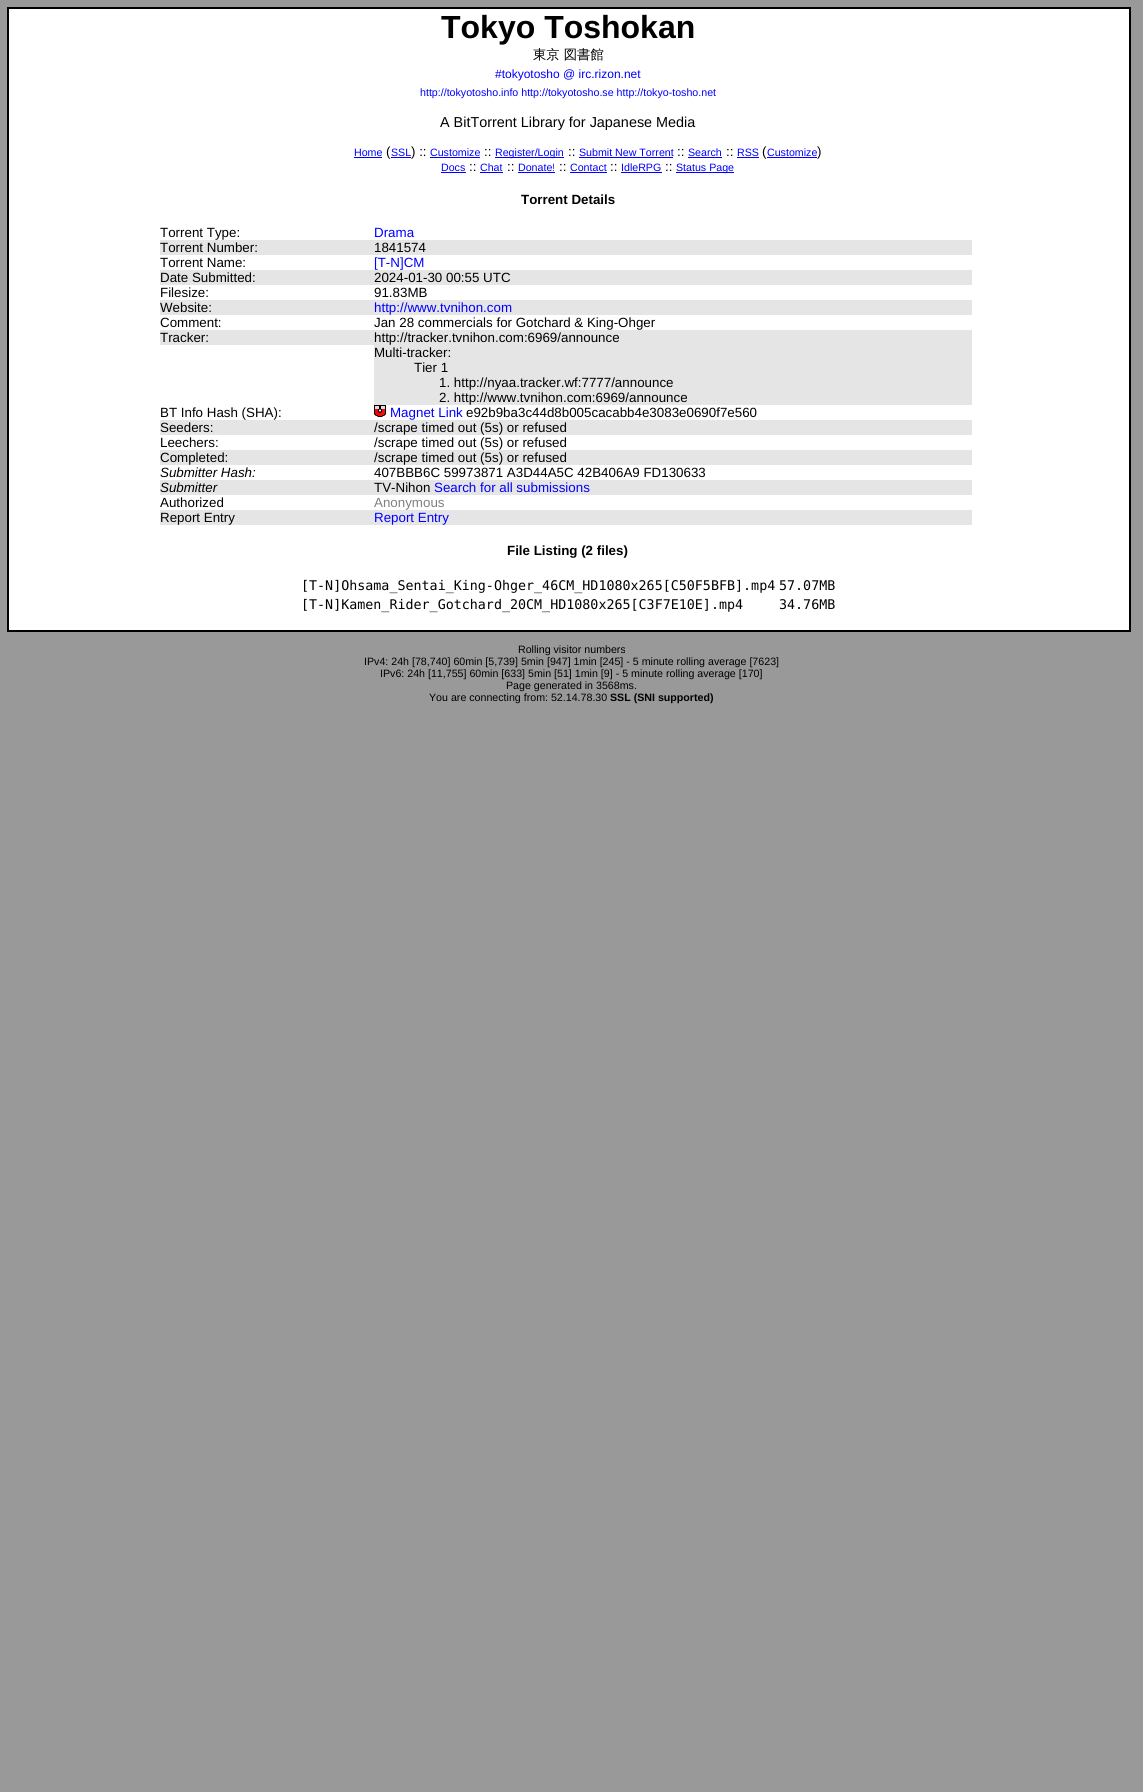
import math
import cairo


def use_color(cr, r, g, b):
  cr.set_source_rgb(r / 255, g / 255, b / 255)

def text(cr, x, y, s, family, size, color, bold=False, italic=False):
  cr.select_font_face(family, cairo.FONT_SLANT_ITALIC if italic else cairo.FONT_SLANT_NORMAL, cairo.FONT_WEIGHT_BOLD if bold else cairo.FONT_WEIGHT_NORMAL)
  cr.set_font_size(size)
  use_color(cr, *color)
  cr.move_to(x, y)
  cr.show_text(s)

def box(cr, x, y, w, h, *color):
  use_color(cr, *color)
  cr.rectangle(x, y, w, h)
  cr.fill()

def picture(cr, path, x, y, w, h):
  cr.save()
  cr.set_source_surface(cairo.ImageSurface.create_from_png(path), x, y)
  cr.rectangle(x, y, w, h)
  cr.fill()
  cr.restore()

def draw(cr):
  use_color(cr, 153, 153, 153)
  cr.paint()
  use_color(cr, 255, 255, 255)
  cr.rectangle(8, 8, 1122, 623)
  cr.fill_preserve()
  use_color(cr, 0, 0, 0)
  cr.stroke()
  box(cr, 354, 157, 28, 1, 0, 0, 255)
  box(cr, 391, 157, 20, 1, 0, 0, 255)
  box(cr, 430, 157, 50, 1, 0, 0, 255)
  box(cr, 495, 157, 69, 1, 0, 0, 255)
  box(cr, 579, 157, 94, 1, 0, 0, 255)
  box(cr, 688, 157, 34, 1, 0, 0, 255)
  box(cr, 737, 157, 22, 1, 0, 0, 255)
  box(cr, 767, 157, 50, 1, 0, 0, 255)
  box(cr, 441, 172, 25, 1, 0, 0, 255)
  box(cr, 480, 172, 23, 1, 0, 0, 255)
  box(cr, 518, 172, 37, 1, 0, 0, 255)
  box(cr, 570, 172, 37, 1, 0, 0, 255)
  box(cr, 621, 172, 41, 1, 0, 0, 255)
  box(cr, 676, 172, 58, 1, 0, 0, 255)
  box(cr, 160, 240, 812, 15, 229, 229, 229)
  box(cr, 160, 270, 812, 15, 229, 229, 229)
  box(cr, 160, 300, 812, 15, 229, 229, 229)
  box(cr, 160, 330, 214, 15, 229, 229, 229)
  box(cr, 374, 330, 598, 75, 229, 229, 229)
  picture(cr, "img_01.png", 374, 405, 12, 12)
  box(cr, 160, 420, 812, 15, 229, 229, 229)
  box(cr, 160, 450, 812, 15, 229, 229, 229)
  box(cr, 160, 480, 812, 15, 229, 229, 229)
  box(cr, 160, 510, 812, 15, 229, 229, 229)
  text(cr, 441, 38, "Tokyo Toshokan", "Liberation Sans", 32, (0, 0, 0), bold=True)
  text(cr, 533, 59, "東京 図書館", "WenQuanYi Zen Hei Medium", 13.35, (0, 0, 0))
  text(cr, 495, 78, "#tokyotosho @ irc.rizon.net", "Liberation Sans", 12, (0, 0, 255))
  text(cr, 420, 96, "http://tokyotosho.info http://tokyotosho.se http://tokyo-tosho.net", "Liberation Sans", 10.65, (0, 0, 255))
  text(cr, 440, 127, "A BitTorrent Library for Japanese Media", "Liberation Sans", 14.4, (0, 0, 0))
  text(cr, 354, 156, "Home", "Liberation Sans", 10.65, (0, 0, 255))
  text(cr, 386, 156, "(", "Liberation Sans", 13.35, (0, 0, 0))
  text(cr, 391, 156, "SSL", "Liberation Sans", 10.65, (0, 0, 255))
  text(cr, 411, 156, ") ::", "Liberation Sans", 13.35, (0, 0, 0))
  text(cr, 430, 156, "Customize", "Liberation Sans", 10.65, (0, 0, 255))
  text(cr, 484, 156, "::", "Liberation Sans", 13.35, (0, 0, 0))
  text(cr, 495, 156, "Register/Login", "Liberation Sans", 10.65, (0, 0, 255))
  text(cr, 568, 156, "::", "Liberation Sans", 13.35, (0, 0, 0))
  text(cr, 579, 156, "Submit New Torrent", "Liberation Sans", 10.65, (0, 0, 255))
  text(cr, 677, 156, "::", "Liberation Sans", 13.35, (0, 0, 0))
  text(cr, 688, 156, "Search", "Liberation Sans", 10.65, (0, 0, 255))
  text(cr, 726, 156, "::", "Liberation Sans", 13.35, (0, 0, 0))
  text(cr, 737, 156, "RSS", "Liberation Sans", 10.65, (0, 0, 255))
  text(cr, 762, 156, "(", "Liberation Sans", 13.35, (0, 0, 0))
  text(cr, 767, 156, "Customize", "Liberation Sans", 10.65, (0, 0, 255))
  text(cr, 817, 156, ")", "Liberation Sans", 13.35, (0, 0, 0))
  text(cr, 441, 171, "Docs", "Liberation Sans", 10.65, (0, 0, 255))
  text(cr, 469, 171, "::", "Liberation Sans", 13.35, (0, 0, 0))
  text(cr, 480, 171, "Chat", "Liberation Sans", 10.65, (0, 0, 255))
  text(cr, 507, 171, "::", "Liberation Sans", 13.35, (0, 0, 0))
  text(cr, 518, 171, "Donate!", "Liberation Sans", 10.65, (0, 0, 255))
  text(cr, 559, 171, "::", "Liberation Sans", 13.35, (0, 0, 0))
  text(cr, 570, 171, "Contact", "Liberation Sans", 10.65, (0, 0, 255))
  text(cr, 610, 171, "::", "Liberation Sans", 13.35, (0, 0, 0))
  text(cr, 621, 171, "IdleRPG", "Liberation Sans", 10.65, (0, 0, 255))
  text(cr, 665, 171, "::", "Liberation Sans", 13.35, (0, 0, 0))
  text(cr, 676, 171, "Status Page", "Liberation Sans", 10.65, (0, 0, 255))
  text(cr, 521, 204, "Torrent Details", "Liberation Sans", 13.35, (0, 0, 0), bold=True)
  text(cr, 160, 237, "Torrent Type:", "Liberation Sans", 13.35, (0, 0, 0))
  text(cr, 374, 237, "Drama", "Liberation Sans", 13.35, (0, 0, 255))
  text(cr, 160, 252, "Torrent Number:", "Liberation Sans", 13.35, (0, 0, 0))
  text(cr, 374, 252, "1841574", "Liberation Sans", 13.35, (0, 0, 0))
  text(cr, 160, 267, "Torrent Name:", "Liberation Sans", 13.35, (0, 0, 0))
  text(cr, 374, 267, "[T-N]CM", "Liberation Sans", 13.35, (0, 0, 255))
  text(cr, 160, 282, "Date Submitted:", "Liberation Sans", 13.35, (0, 0, 0))
  text(cr, 374, 282, "2024-01-30 00:55 UTC", "Liberation Sans", 13.35, (0, 0, 0))
  text(cr, 160, 297, "Filesize:", "Liberation Sans", 13.35, (0, 0, 0))
  text(cr, 374, 297, "91.83MB", "Liberation Sans", 13.35, (0, 0, 0))
  text(cr, 160, 312, "Website:", "Liberation Sans", 13.35, (0, 0, 0))
  text(cr, 374, 312, "http://www.tvnihon.com", "Liberation Sans", 13.35, (0, 0, 255))
  text(cr, 160, 327, "Comment:", "Liberation Sans", 13.35, (0, 0, 0))
  text(cr, 374, 327, "Jan 28 commercials for Gotchard & King-Ohger", "Liberation Sans", 13.35, (0, 0, 0))
  text(cr, 160, 342, "Tracker:", "Liberation Sans", 13.35, (0, 0, 0))
  text(cr, 374, 342, "http://tracker.tvnihon.com:6969/announce", "Liberation Sans", 13.35, (0, 0, 0))
  text(cr, 374, 357, "Multi-tracker:", "Liberation Sans", 13.35, (0, 0, 0))
  text(cr, 414, 372, "Tier 1", "Liberation Sans", 13.35, (0, 0, 0))
  text(cr, 439, 387, "1. http://nyaa.tracker.wf:7777/announce", "Liberation Sans", 13.35, (0, 0, 0))
  text(cr, 439, 402, "2. http://www.tvnihon.com:6969/announce", "Liberation Sans", 13.35, (0, 0, 0))
  text(cr, 160, 417, "BT Info Hash (SHA):", "Liberation Sans", 13.35, (0, 0, 0))
  text(cr, 390, 417, "Magnet Link", "Liberation Sans", 13.35, (0, 0, 255))
  text(cr, 466, 417, "e92b9ba3c44d8b005cacabb4e3083e0690f7e560", "Liberation Sans", 13.35, (0, 0, 0))
  text(cr, 160, 432, "Seeders:", "Liberation Sans", 13.35, (0, 0, 0))
  text(cr, 374, 432, "/scrape timed out (5s) or refused", "Liberation Sans", 13.35, (0, 0, 0))
  text(cr, 160, 447, "Leechers:", "Liberation Sans", 13.35, (0, 0, 0))
  text(cr, 374, 447, "/scrape timed out (5s) or refused", "Liberation Sans", 13.35, (0, 0, 0))
  text(cr, 160, 462, "Completed:", "Liberation Sans", 13.35, (0, 0, 0))
  text(cr, 374, 462, "/scrape timed out (5s) or refused", "Liberation Sans", 13.35, (0, 0, 0))
  text(cr, 160, 477, "Submitter Hash:", "Liberation Sans", 13.35, (0, 0, 0), italic=True)
  text(cr, 374, 477, "407BBB6C 59973871 A3D44A5C 42B406A9 FD130633", "Liberation Sans", 13.35, (0, 0, 0))
  text(cr, 160, 492, "Submitter", "Liberation Sans", 13.35, (0, 0, 0), italic=True)
  text(cr, 374, 492, "TV-Nihon", "Liberation Sans", 13.35, (0, 0, 0))
  text(cr, 434, 492, "Search for all submissions", "Liberation Sans", 13.35, (0, 0, 255))
  text(cr, 160, 507, "Authorized", "Liberation Sans", 13.35, (0, 0, 0))
  text(cr, 374, 507, "Anonymous", "Liberation Sans", 13.35, (128, 128, 128))
  text(cr, 160, 522, "Report Entry", "Liberation Sans", 13.35, (0, 0, 0))
  text(cr, 374, 522, "Report Entry", "Liberation Sans", 13.35, (0, 0, 255))
  text(cr, 507, 555, "File Listing (2 files)", "Liberation Sans", 13.35, (0, 0, 0), bold=True)
  text(cr, 301, 590, "[T-N]Ohsama_Sentai_King-Ohger_46CM_HD1080x265[C50F5BFB].mp4", "DejaVu Sans Mono", 13.35, (0, 0, 0))
  text(cr, 779, 590, "57.07MB", "DejaVu Sans Mono", 13.35, (0, 0, 0))
  text(cr, 301, 609, "[T-N]Kamen_Rider_Gotchard_20CM_HD1080x265[C3F7E10E].mp4", "DejaVu Sans Mono", 13.35, (0, 0, 0))
  text(cr, 779, 609, "34.76MB", "DejaVu Sans Mono", 13.35, (0, 0, 0))
  text(cr, 518, 653, "Rolling visitor numbers", "Liberation Sans", 10.65, (0, 0, 0))
  text(cr, 364, 665, "IPv4: 24h [78,740] 60min [5,739] 5min [947] 1min [245] - 5 minute rolling average [7623]", "Liberation Sans", 10.65, (0, 0, 0))
  text(cr, 380, 677, "IPv6: 24h [11,755] 60min [633] 5min [51] 1min [9] - 5 minute rolling average [170]", "Liberation Sans", 10.65, (0, 0, 0))
  text(cr, 506, 689, "Page generated in 3568ms.", "Liberation Sans", 10.65, (0, 0, 0))
  text(cr, 429, 701, "You are connecting from: 52.14.78.30", "Liberation Sans", 10.65, (0, 0, 0))
  text(cr, 610, 701, "SSL (SNI supported)", "Liberation Sans", 10.65, (0, 0, 0), bold=True)


surface = cairo.ImageSurface(cairo.FORMAT_RGB24, 1143, 1792)
cr = cairo.Context(surface)
options = cairo.FontOptions()
options.set_hint_metrics(cairo.HINT_METRICS_OFF)
options.set_hint_style(cairo.HINT_STYLE_NONE)
cr.set_font_options(options)
cr.set_miter_limit(4)
draw(cr)
surface.write_to_png("out.png")
